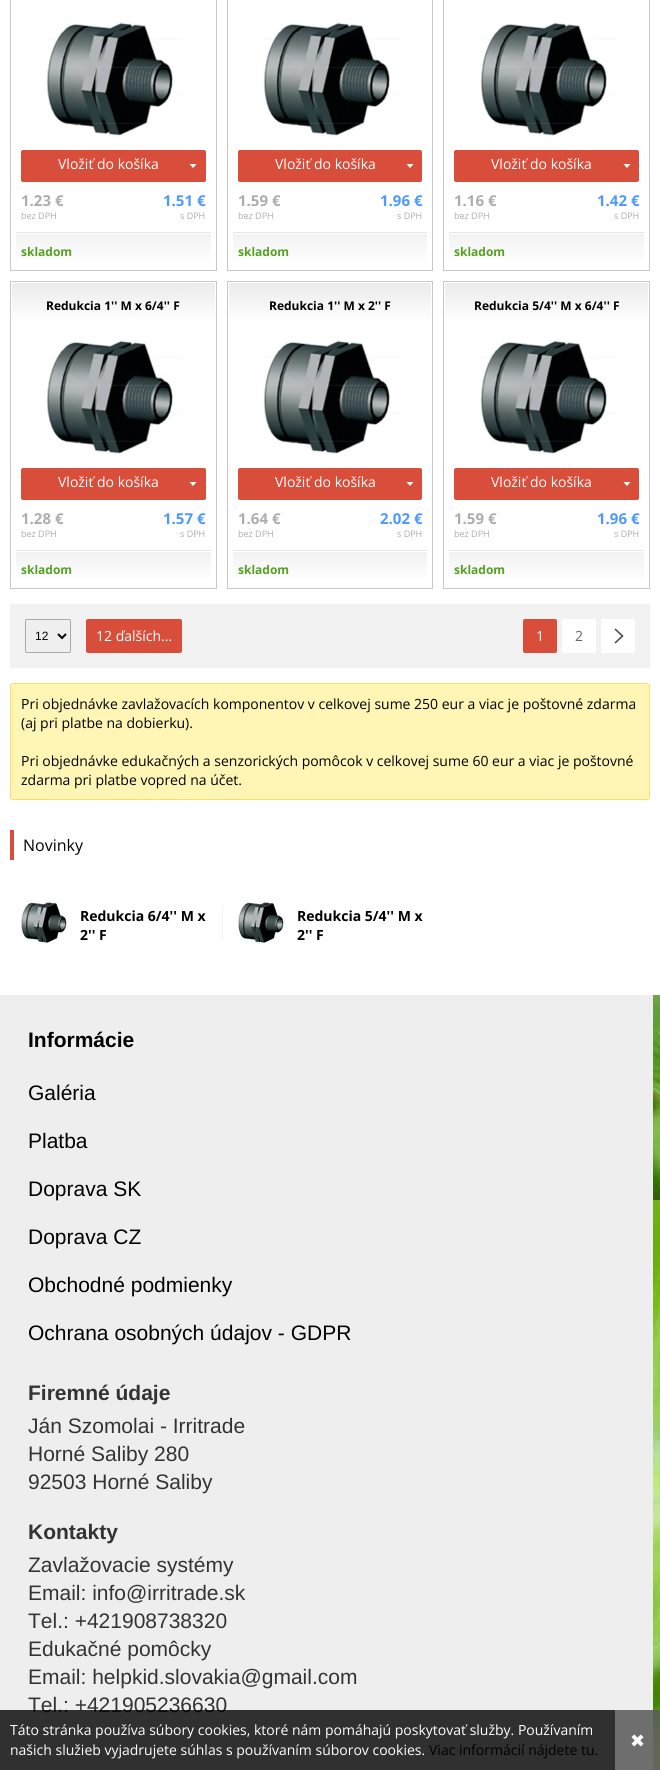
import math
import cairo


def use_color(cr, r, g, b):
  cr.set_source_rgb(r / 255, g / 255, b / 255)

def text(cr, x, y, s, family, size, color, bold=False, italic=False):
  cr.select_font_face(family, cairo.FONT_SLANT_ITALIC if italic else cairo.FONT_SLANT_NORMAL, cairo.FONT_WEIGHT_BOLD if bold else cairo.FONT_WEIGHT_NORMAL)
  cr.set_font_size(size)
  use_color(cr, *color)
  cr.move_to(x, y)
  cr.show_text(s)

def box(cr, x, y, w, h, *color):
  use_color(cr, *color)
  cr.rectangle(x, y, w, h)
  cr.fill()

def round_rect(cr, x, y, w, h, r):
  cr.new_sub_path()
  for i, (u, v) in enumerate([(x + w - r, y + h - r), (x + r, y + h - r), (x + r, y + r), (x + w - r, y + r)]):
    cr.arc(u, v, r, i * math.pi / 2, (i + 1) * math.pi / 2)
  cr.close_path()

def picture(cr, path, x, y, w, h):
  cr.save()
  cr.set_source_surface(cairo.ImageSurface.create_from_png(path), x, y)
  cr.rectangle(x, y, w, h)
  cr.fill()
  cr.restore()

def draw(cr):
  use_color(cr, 255, 255, 255)
  cr.paint()
  picture(cr, "img_01.png", 653, 995, 7, 775)
  cr.rectangle(10.5, -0.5, 206, 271)
  use_color(cr, 200, 200, 200)
  cr.set_line_width(1)
  cr.stroke()
  picture(cr, "img_02.png", 46, 22, 137, 115)
  use_color(cr, 217, 78, 59)
  round_rect(cr, 21, 150, 185, 32, 2)
  cr.fill()
  use_color(cr, 255, 255, 255)
  cr.new_path()
  cr.move_to(189.5, 164)
  cr.line_to(193, 168)
  cr.line_to(196.5, 164)
  cr.close_path()
  cr.fill()
  gradient = cairo.LinearGradient(114, 234, 114, 266)
  gradient.add_color_stop_rgba(0, 0.949, 0.949, 0.949, 1)
  gradient.add_color_stop_rgba(1, 1, 1, 1, 1)
  cr.set_source(gradient)
  cr.rectangle(16, 234, 195, 26)
  cr.fill()
  box(cr, 16, 232, 195, 1, 229, 229, 229)
  cr.rectangle(227.5, -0.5, 205, 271)
  use_color(cr, 200, 200, 200)
  cr.stroke()
  picture(cr, "img_02.png", 263, 22, 137, 115)
  use_color(cr, 217, 78, 59)
  round_rect(cr, 238, 150, 184, 32, 2)
  cr.fill()
  use_color(cr, 255, 255, 255)
  cr.new_path()
  cr.move_to(406.5, 164)
  cr.line_to(410, 168)
  cr.line_to(413.5, 164)
  cr.close_path()
  cr.fill()
  gradient = cairo.LinearGradient(330, 234, 330, 266)
  gradient.add_color_stop_rgba(0, 0.949, 0.949, 0.949, 1)
  gradient.add_color_stop_rgba(1, 1, 1, 1, 1)
  cr.set_source(gradient)
  cr.rectangle(233, 234, 194, 26)
  cr.fill()
  box(cr, 233, 232, 194, 1, 229, 229, 229)
  cr.rectangle(443.5, -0.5, 206, 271)
  use_color(cr, 200, 200, 200)
  cr.stroke()
  picture(cr, "img_02.png", 480, 22, 137, 115)
  use_color(cr, 217, 78, 59)
  round_rect(cr, 454, 150, 185, 32, 2)
  cr.fill()
  use_color(cr, 255, 255, 255)
  cr.new_path()
  cr.move_to(623.5, 164)
  cr.line_to(627, 168)
  cr.line_to(630.5, 164)
  cr.close_path()
  cr.fill()
  gradient = cairo.LinearGradient(547, 234, 547, 266)
  gradient.add_color_stop_rgba(0, 0.949, 0.949, 0.949, 1)
  gradient.add_color_stop_rgba(1, 1, 1, 1, 1)
  cr.set_source(gradient)
  cr.rectangle(449, 234, 195, 26)
  cr.fill()
  box(cr, 449, 232, 195, 1, 229, 229, 229)
  cr.rectangle(10.5, 281.5, 206, 307)
  use_color(cr, 200, 200, 200)
  cr.stroke()
  gradient = cairo.LinearGradient(113, 283, 114, 587)
  gradient.add_color_stop_rgba(0, 0.922, 0.922, 0.922, 1)
  gradient.add_color_stop_rgba(0.13, 1, 1, 1, 1)
  cr.set_source(gradient)
  round_rect(cr, 12, 283, 203, 304, 2)
  cr.fill()
  picture(cr, "img_02.png", 46, 340, 137, 115)
  use_color(cr, 217, 78, 59)
  round_rect(cr, 21, 468, 185, 32, 2)
  cr.fill()
  use_color(cr, 255, 255, 255)
  cr.new_path()
  cr.move_to(189.5, 482)
  cr.line_to(193, 486)
  cr.line_to(196.5, 482)
  cr.close_path()
  cr.fill()
  gradient = cairo.LinearGradient(114, 552, 114, 584)
  gradient.add_color_stop_rgba(0, 0.949, 0.949, 0.949, 1)
  gradient.add_color_stop_rgba(1, 1, 1, 1, 1)
  cr.set_source(gradient)
  cr.rectangle(16, 552, 195, 26)
  cr.fill()
  box(cr, 16, 550, 195, 1, 229, 229, 229)
  cr.rectangle(227.5, 281.5, 205, 307)
  use_color(cr, 200, 200, 200)
  cr.stroke()
  gradient = cairo.LinearGradient(330, 283, 330, 587)
  gradient.add_color_stop_rgba(0, 0.922, 0.922, 0.922, 1)
  gradient.add_color_stop_rgba(0.13, 1, 1, 1, 1)
  cr.set_source(gradient)
  round_rect(cr, 229, 283, 202, 304, 2)
  cr.fill()
  picture(cr, "img_02.png", 263, 340, 137, 115)
  use_color(cr, 217, 78, 59)
  round_rect(cr, 238, 468, 184, 32, 2)
  cr.fill()
  use_color(cr, 255, 255, 255)
  cr.new_path()
  cr.move_to(406.5, 482)
  cr.line_to(410, 486)
  cr.line_to(413.5, 482)
  cr.close_path()
  cr.fill()
  gradient = cairo.LinearGradient(330, 552, 330, 584)
  gradient.add_color_stop_rgba(0, 0.949, 0.949, 0.949, 1)
  gradient.add_color_stop_rgba(1, 1, 1, 1, 1)
  cr.set_source(gradient)
  cr.rectangle(233, 552, 194, 26)
  cr.fill()
  box(cr, 233, 550, 194, 1, 229, 229, 229)
  cr.rectangle(443.5, 281.5, 206, 307)
  use_color(cr, 200, 200, 200)
  cr.stroke()
  gradient = cairo.LinearGradient(547, 283, 547, 587)
  gradient.add_color_stop_rgba(0, 0.922, 0.922, 0.922, 1)
  gradient.add_color_stop_rgba(0.13, 1, 1, 1, 1)
  cr.set_source(gradient)
  round_rect(cr, 445, 283, 203, 304, 2)
  cr.fill()
  picture(cr, "img_02.png", 480, 340, 137, 115)
  use_color(cr, 217, 78, 59)
  round_rect(cr, 454, 468, 185, 32, 2)
  cr.fill()
  use_color(cr, 255, 255, 255)
  cr.new_path()
  cr.move_to(623.5, 482)
  cr.line_to(627, 486)
  cr.line_to(630.5, 482)
  cr.close_path()
  cr.fill()
  gradient = cairo.LinearGradient(547, 552, 547, 584)
  gradient.add_color_stop_rgba(0, 0.949, 0.949, 0.949, 1)
  gradient.add_color_stop_rgba(1, 1, 1, 1, 1)
  cr.set_source(gradient)
  cr.rectangle(449, 552, 195, 26)
  cr.fill()
  box(cr, 449, 550, 195, 1, 229, 229, 229)
  box(cr, 10, 604, 640, 64, 242, 242, 242)
  use_color(cr, 239, 239, 239)
  round_rect(cr, 25.5, 619.5, 45, 33, 1.5)
  cr.fill_preserve()
  use_color(cr, 170, 170, 170)
  cr.stroke()
  cr.new_path()
  cr.move_to(58, 634)
  cr.line_to(62, 638)
  cr.line_to(66, 634)
  use_color(cr, 0, 0, 0)
  cr.set_line_width(2)
  cr.stroke()
  use_color(cr, 217, 78, 59)
  round_rect(cr, 86, 619, 96, 34, 2)
  cr.fill()
  round_rect(cr, 523, 619, 34, 34, 2)
  cr.fill()
  use_color(cr, 255, 255, 255)
  round_rect(cr, 562, 619, 34, 34, 2)
  cr.fill()
  round_rect(cr, 601, 619, 34, 34, 2)
  cr.fill()
  cr.new_path()
  cr.move_to(615, 629)
  cr.line_to(622.5, 636)
  cr.line_to(615, 643)
  use_color(cr, 77, 77, 77)
  cr.set_line_width(1.6)
  cr.stroke()
  use_color(cr, 255, 246, 181)
  round_rect(cr, 10.5, 683.5, 639, 116, 2.5)
  cr.fill_preserve()
  use_color(cr, 251, 221, 103)
  cr.set_line_width(1)
  cr.stroke()
  box(cr, 10, 830, 4, 30, 217, 78, 59)
  picture(cr, "img_03.png", 20, 900, 48, 44)
  box(cr, 222, 907, 1, 32, 240, 240, 240)
  picture(cr, "img_03.png", 237, 900, 48, 44)
  box(cr, 0, 995, 653, 775, 238, 238, 238)
  text(cr, 58, 169, "Vložiť do košíka", "Open Sans", 14, (255, 255, 255))
  text(cr, 21, 206, "1.23 €", "Open Sans", 15, (173, 173, 173), bold=True)
  text(cr, 21, 219, "bez DPH", "Open Sans", 9, (173, 173, 173))
  text(cr, 163, 206, "1.51 €", "Open Sans", 15, (77, 154, 255), bold=True)
  text(cr, 180, 219, "s DPH", "Open Sans", 9, (173, 173, 173))
  text(cr, 21, 256, "skladom", "Open Sans", 12, (85, 161, 35), bold=True)
  text(cr, 275, 169, "Vložiť do košíka", "Open Sans", 14, (255, 255, 255))
  text(cr, 238, 206, "1.59 €", "Open Sans", 15, (173, 173, 173), bold=True)
  text(cr, 238, 219, "bez DPH", "Open Sans", 9, (173, 173, 173))
  text(cr, 380, 206, "1.96 €", "Open Sans", 15, (77, 154, 255), bold=True)
  text(cr, 397, 219, "s DPH", "Open Sans", 9, (173, 173, 173))
  text(cr, 238, 256, "skladom", "Open Sans", 12, (85, 161, 35), bold=True)
  text(cr, 491, 169, "Vložiť do košíka", "Open Sans", 14, (255, 255, 255))
  text(cr, 454, 206, "1.16 €", "Open Sans", 15, (173, 173, 173), bold=True)
  text(cr, 454, 219, "bez DPH", "Open Sans", 9, (173, 173, 173))
  text(cr, 597, 206, "1.42 €", "Open Sans", 15, (77, 154, 255), bold=True)
  text(cr, 614, 219, "s DPH", "Open Sans", 9, (173, 173, 173))
  text(cr, 454, 256, "skladom", "Open Sans", 12, (85, 161, 35), bold=True)
  text(cr, 46, 310, "Redukcia 1'' M x 6/4'' F", "Open Sans", 12, (0, 0, 0), bold=True)
  text(cr, 58, 487, "Vložiť do košíka", "Open Sans", 14, (255, 255, 255))
  text(cr, 21, 524, "1.28 €", "Open Sans", 15, (173, 173, 173), bold=True)
  text(cr, 21, 537, "bez DPH", "Open Sans", 9, (173, 173, 173))
  text(cr, 163, 524, "1.57 €", "Open Sans", 15, (77, 154, 255), bold=True)
  text(cr, 180, 537, "s DPH", "Open Sans", 9, (173, 173, 173))
  text(cr, 21, 574, "skladom", "Open Sans", 12, (85, 161, 35), bold=True)
  text(cr, 269, 310, "Redukcia 1'' M x 2'' F", "Open Sans", 12, (0, 0, 0), bold=True)
  text(cr, 275, 487, "Vložiť do košíka", "Open Sans", 14, (255, 255, 255))
  text(cr, 238, 524, "1.64 €", "Open Sans", 15, (173, 173, 173), bold=True)
  text(cr, 238, 537, "bez DPH", "Open Sans", 9, (173, 173, 173))
  text(cr, 380, 524, "2.02 €", "Open Sans", 15, (77, 154, 255), bold=True)
  text(cr, 397, 537, "s DPH", "Open Sans", 9, (173, 173, 173))
  text(cr, 238, 574, "skladom", "Open Sans", 12, (85, 161, 35), bold=True)
  text(cr, 474, 310, "Redukcia 5/4'' M x 6/4'' F", "Open Sans", 12, (0, 0, 0), bold=True)
  text(cr, 491, 487, "Vložiť do košíka", "Open Sans", 14, (255, 255, 255))
  text(cr, 454, 524, "1.59 €", "Open Sans", 15, (173, 173, 173), bold=True)
  text(cr, 454, 537, "bez DPH", "Open Sans", 9, (173, 173, 173))
  text(cr, 597, 524, "1.96 €", "Open Sans", 15, (77, 154, 255), bold=True)
  text(cr, 614, 537, "s DPH", "Open Sans", 9, (173, 173, 173))
  text(cr, 454, 574, "skladom", "Open Sans", 12, (85, 161, 35), bold=True)
  text(cr, 35, 640, "12", "Liberation Sans", 12, (0, 0, 0))
  text(cr, 96, 641, "12 ďalších...", "Open Sans", 14, (255, 255, 255))
  text(cr, 536, 641, "1", "Open Sans", 14, (255, 255, 255))
  text(cr, 575, 641, "2", "Open Sans", 14, (102, 102, 102))
  text(cr, 21, 709, "Pri objednávke zavlažovacích komponentov v celkovej sume 250 eur a viac je poštovné zdarma", "Open Sans", 14, (0, 0, 0))
  text(cr, 21, 728, "(aj pri platbe na dobierku).", "Open Sans", 14, (0, 0, 0))
  text(cr, 21, 766, "Pri objednávke edukačných a senzorických pomôcok v celkovej sume 60 eur a viac je poštovné", "Open Sans", 14, (0, 0, 0))
  text(cr, 21, 785, "zdarma pri platbe vopred na účet.", "Open Sans", 14, (0, 0, 0))
  text(cr, 23, 851, "Novinky", "Open Sans", 16, (0, 0, 0))
  text(cr, 80, 921, "Redukcia 6/4'' M x", "Open Sans", 14, (0, 0, 0), bold=True)
  text(cr, 80, 940, "2'' F", "Open Sans", 14, (0, 0, 0), bold=True)
  text(cr, 297, 921, "Redukcia 5/4'' M x", "Open Sans", 14, (0, 0, 0), bold=True)
  text(cr, 297, 940, "2'' F", "Open Sans", 14, (0, 0, 0), bold=True)
  text(cr, 28, 1047, "Informácie", "Liberation Sans", 21, (0, 0, 0), bold=True)
  text(cr, 28, 1100, "Galéria", "Liberation Sans", 21, (0, 0, 0))
  text(cr, 28, 1148, "Platba", "Liberation Sans", 21, (0, 0, 0))
  text(cr, 28, 1196, "Doprava SK", "Liberation Sans", 21, (0, 0, 0))
  text(cr, 28, 1244, "Doprava CZ", "Liberation Sans", 21, (0, 0, 0))
  text(cr, 28, 1292, "Obchodné podmienky", "Liberation Sans", 21, (0, 0, 0))
  text(cr, 28, 1340, "Ochrana osobných údajov - GDPR", "Liberation Sans", 21, (0, 0, 0))
  text(cr, 28, 1400, "Firemné údaje", "Liberation Sans", 21, (51, 51, 51), bold=True)
  text(cr, 28, 1433, "Ján Szomolai - Irritrade", "Liberation Sans", 21, (51, 51, 51))
  text(cr, 28, 1461, "Horné Saliby 280", "Liberation Sans", 21, (51, 51, 51))
  text(cr, 28, 1489, "92503 Horné Saliby", "Liberation Sans", 21, (51, 51, 51))
  text(cr, 28, 1539, "Kontakty", "Liberation Sans", 21, (51, 51, 51), bold=True)
  text(cr, 28, 1572, "Zavlažovacie systémy", "Liberation Sans", 21, (51, 51, 51))
  text(cr, 28, 1600, "Email: info@irritrade.sk", "Liberation Sans", 21, (51, 51, 51))
  text(cr, 28, 1628, "Tel.: +421908738320", "Liberation Sans", 21, (51, 51, 51))
  text(cr, 28, 1656, "Edukačné pomôcky", "Liberation Sans", 21, (51, 51, 51))
  text(cr, 28, 1684, "Email: helpkid.slovakia@gmail.com", "Liberation Sans", 21, (51, 51, 51))
  text(cr, 28, 1712, "Tel.: +421905236630", "Liberation Sans", 21, (51, 51, 51))
  cr.set_source_rgba(0, 0, 0, 0.8)
  cr.rectangle(0, 1710, 660, 60)
  cr.fill()
  text(cr, 10, 1735, "Táto stránka používa súbory cookies, ktoré nám pomáhajú poskytovať služby. Používaním", "Open Sans", 14, (255, 255, 255))
  text(cr, 10, 1755, "našich služieb vyjadrujete súhlas s používaním súborov cookies.", "Open Sans", 14, (255, 255, 255))
  text(cr, 429, 1755, "Viac informácií nájdete tu.", "Open Sans", 14, (0, 0, 0))
  cr.set_source_rgba(1, 1, 1, 0.3)
  cr.rectangle(615, 1710, 45, 60)
  cr.fill()
  text(cr, 630, 1747, "✖", "DejaVu Sans", 18, (255, 255, 255))


surface = cairo.ImageSurface(cairo.FORMAT_RGB24, 660, 1770)
cr = cairo.Context(surface)
options = cairo.FontOptions()
options.set_hint_metrics(cairo.HINT_METRICS_OFF)
options.set_hint_style(cairo.HINT_STYLE_NONE)
cr.set_font_options(options)
cr.set_miter_limit(4)
draw(cr)
surface.write_to_png("out.png")
